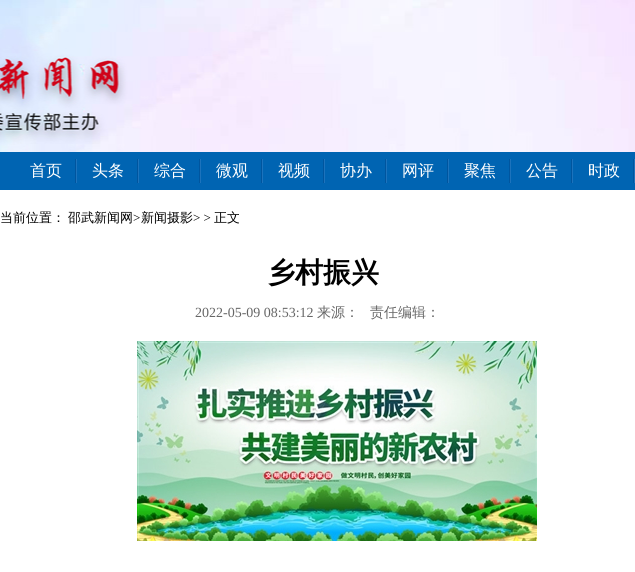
import math
import cairo


def use_color(cr, r, g, b):
  cr.set_source_rgb(r / 255, g / 255, b / 255)

def text(cr, x, y, s, family, size, color, bold=False, italic=False):
  cr.select_font_face(family, cairo.FONT_SLANT_ITALIC if italic else cairo.FONT_SLANT_NORMAL, cairo.FONT_WEIGHT_BOLD if bold else cairo.FONT_WEIGHT_NORMAL)
  cr.set_font_size(size)
  use_color(cr, *color)
  cr.move_to(x, y)
  cr.show_text(s)

def box(cr, x, y, w, h, *color):
  use_color(cr, *color)
  cr.rectangle(x, y, w, h)
  cr.fill()

def picture(cr, path, x, y, w, h):
  cr.save()
  cr.set_source_surface(cairo.ImageSurface.create_from_png(path), x, y)
  cr.rectangle(x, y, w, h)
  cr.fill()
  cr.restore()

def draw(cr):
  use_color(cr, 255, 255, 255)
  cr.paint()
  picture(cr, "img_01.png", 0, 0, 635, 152)
  box(cr, 0, 152, 635, 38, 0, 100, 178)
  picture(cr, "img_02.png", 75, 159, 2, 24)
  picture(cr, "img_02.png", 137, 159, 2, 24)
  picture(cr, "img_02.png", 199, 159, 2, 24)
  picture(cr, "img_02.png", 261, 159, 2, 24)
  picture(cr, "img_02.png", 323, 159, 2, 24)
  picture(cr, "img_02.png", 385, 159, 2, 24)
  picture(cr, "img_02.png", 447, 159, 2, 24)
  picture(cr, "img_02.png", 509, 159, 2, 24)
  picture(cr, "img_02.png", 571, 159, 2, 24)
  picture(cr, "img_02.png", 633, 159, 2, 24)
  picture(cr, "img_03.png", 137, 341, 400, 200)
  text(cr, 30, 176, "首页", "WenQuanYi Zen Hei Medium", 16, (255, 255, 255))
  text(cr, 92, 176, "头条", "WenQuanYi Zen Hei Medium", 16, (255, 255, 255))
  text(cr, 154, 176, "综合", "WenQuanYi Zen Hei Medium", 16, (255, 255, 255))
  text(cr, 216, 176, "微观", "WenQuanYi Zen Hei Medium", 16, (255, 255, 255))
  text(cr, 278, 176, "视频", "WenQuanYi Zen Hei Medium", 16, (255, 255, 255))
  text(cr, 340, 176, "协办", "WenQuanYi Zen Hei Medium", 16, (255, 255, 255))
  text(cr, 402, 176, "网评", "WenQuanYi Zen Hei Medium", 16, (255, 255, 255))
  text(cr, 464, 176, "聚焦", "WenQuanYi Zen Hei Medium", 16, (255, 255, 255))
  text(cr, 526, 176, "公告", "WenQuanYi Zen Hei Medium", 16, (255, 255, 255))
  text(cr, 588, 176, "时政", "WenQuanYi Zen Hei Medium", 16, (255, 255, 255))
  text(cr, 0, 222, "当前位置：", "WenQuanYi Zen Hei Medium", 13, (0, 0, 0))
  text(cr, 68, 222, "邵武新闻网", "WenQuanYi Zen Hei Medium", 13, (0, 0, 0))
  text(cr, 133, 222, ">", "Liberation Serif", 13, (0, 0, 0))
  text(cr, 141, 222, "新闻摄影", "WenQuanYi Zen Hei Medium", 13, (0, 0, 0))
  text(cr, 193, 222, "> >", "Liberation Serif", 13, (0, 0, 0))
  text(cr, 214, 222, "正文", "WenQuanYi Zen Hei Medium", 13, (0, 0, 0))
  text(cr, 267, 282, "乡村振兴", "WenQuanYi Zen Hei", 28, (0, 0, 0), bold=True)
  text(cr, 195, 317, "2022-05-09 08:53:12", "Liberation Serif", 14, (102, 102, 102))
  text(cr, 317, 317, "来源：", "WenQuanYi Zen Hei Medium", 14, (102, 102, 102))
  text(cr, 370, 317, "责任编辑：", "WenQuanYi Zen Hei Medium", 14, (102, 102, 102))


surface = cairo.ImageSurface(cairo.FORMAT_RGB24, 635, 572)
cr = cairo.Context(surface)
options = cairo.FontOptions()
options.set_hint_metrics(cairo.HINT_METRICS_OFF)
options.set_hint_style(cairo.HINT_STYLE_NONE)
cr.set_font_options(options)
cr.set_miter_limit(4)
draw(cr)
surface.write_to_png("out.png")
